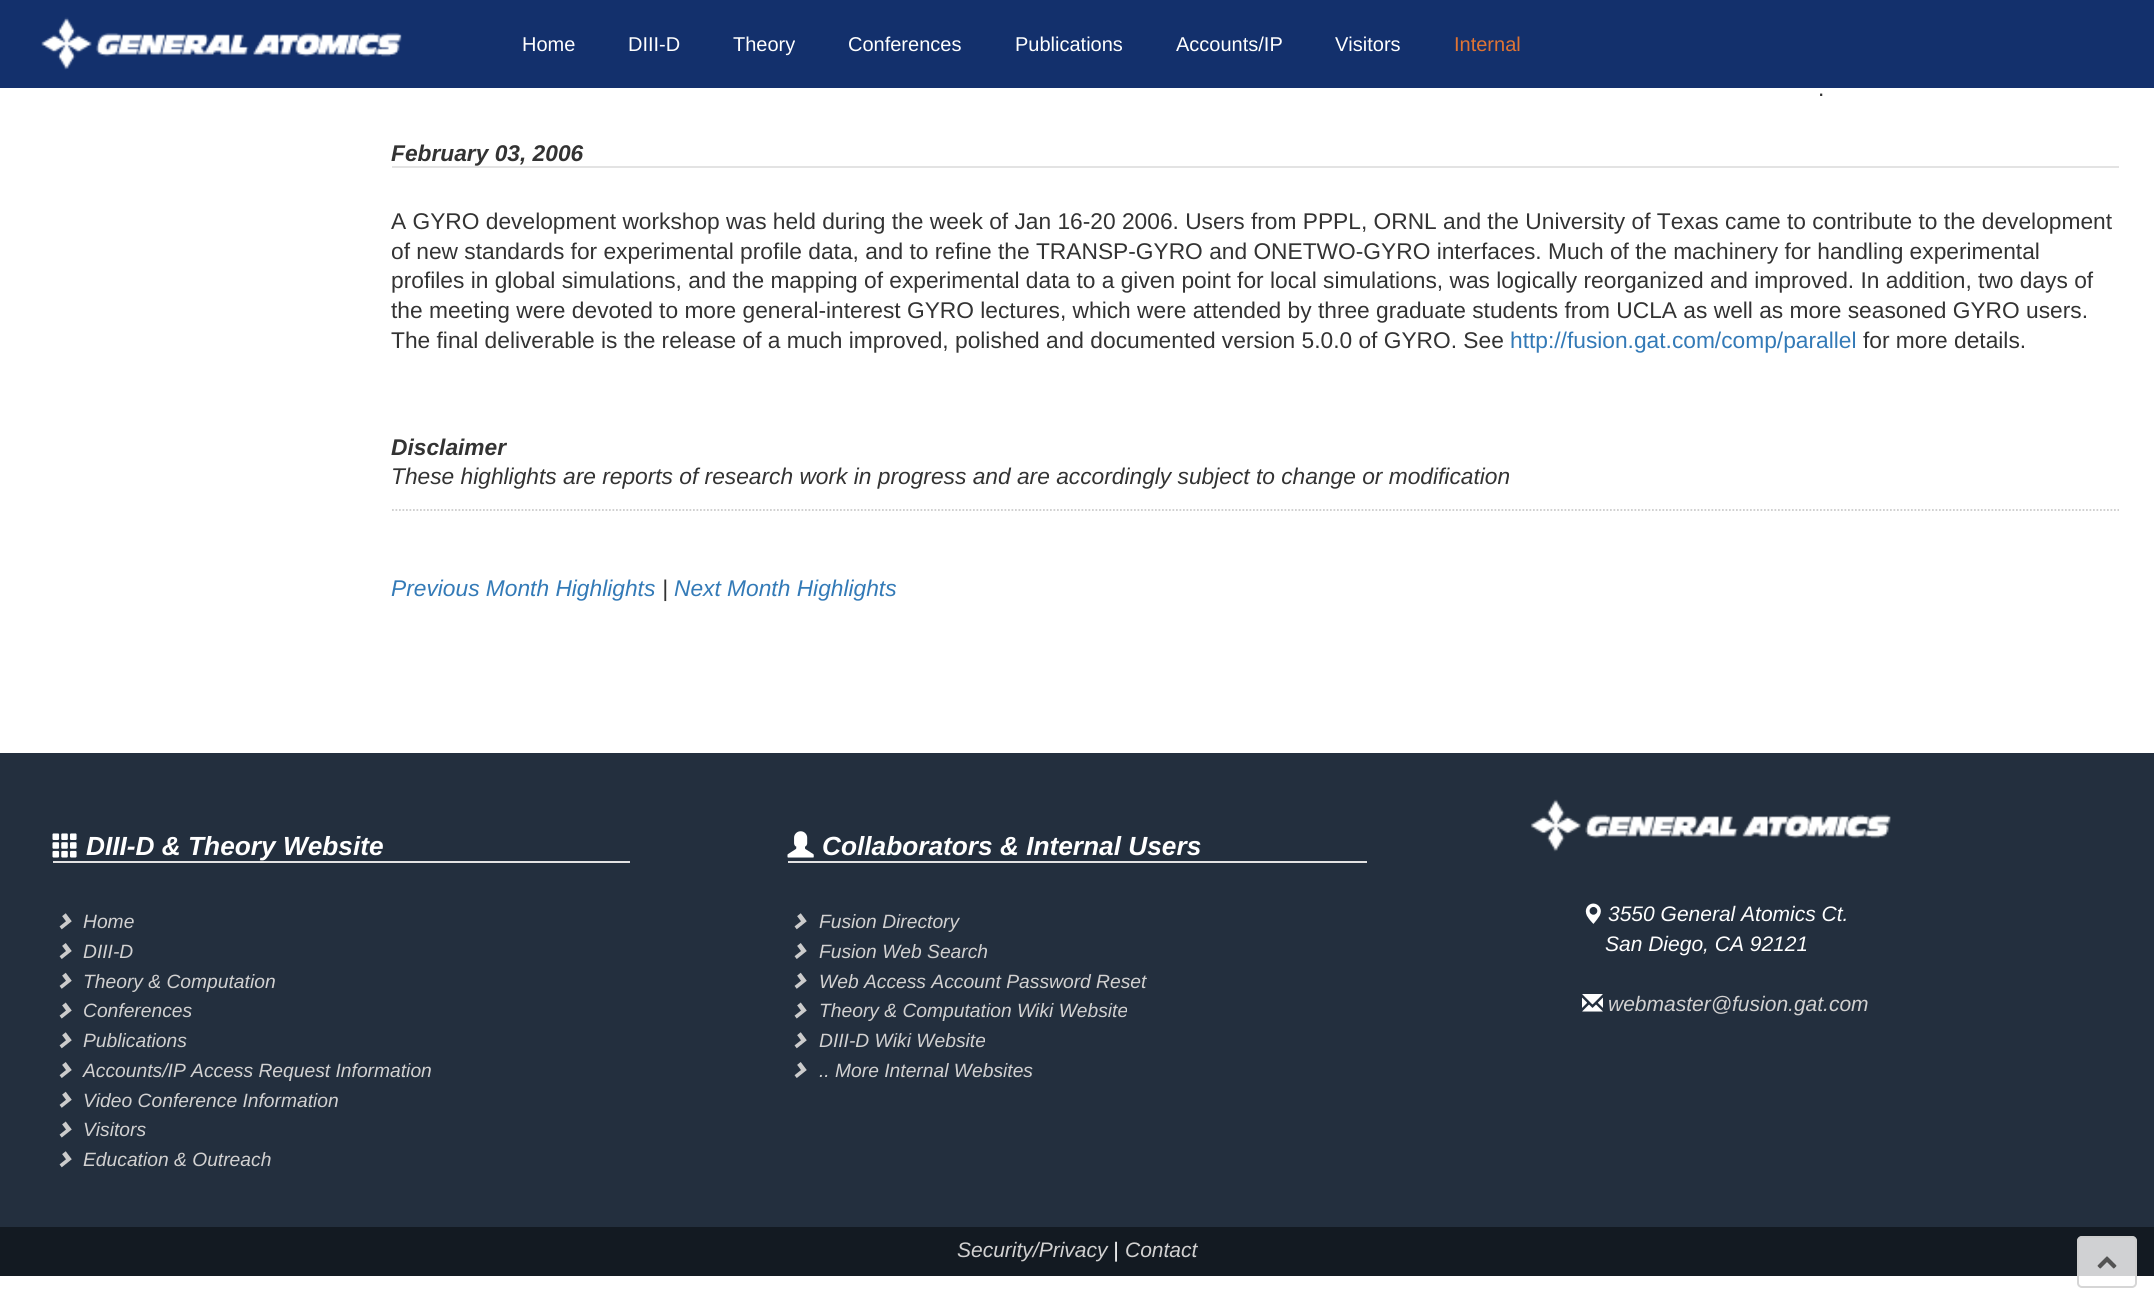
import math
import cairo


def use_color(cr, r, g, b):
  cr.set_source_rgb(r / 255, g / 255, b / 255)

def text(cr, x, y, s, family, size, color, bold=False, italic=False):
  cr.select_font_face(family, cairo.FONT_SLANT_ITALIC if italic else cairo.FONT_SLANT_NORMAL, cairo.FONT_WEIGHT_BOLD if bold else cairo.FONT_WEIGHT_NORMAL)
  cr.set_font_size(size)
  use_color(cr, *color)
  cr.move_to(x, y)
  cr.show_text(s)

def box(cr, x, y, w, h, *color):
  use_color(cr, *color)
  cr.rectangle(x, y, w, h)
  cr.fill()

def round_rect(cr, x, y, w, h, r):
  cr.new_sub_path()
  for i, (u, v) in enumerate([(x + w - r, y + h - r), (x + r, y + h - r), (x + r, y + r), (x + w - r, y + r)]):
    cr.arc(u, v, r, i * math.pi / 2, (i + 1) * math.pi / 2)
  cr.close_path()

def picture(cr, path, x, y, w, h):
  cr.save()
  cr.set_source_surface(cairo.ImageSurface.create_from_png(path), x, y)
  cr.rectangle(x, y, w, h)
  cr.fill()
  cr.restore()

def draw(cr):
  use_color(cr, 255, 255, 255)
  cr.paint()
  box(cr, 0, 0, 2154, 88, 19, 48, 108)
  picture(cr, "img_01.png", 41, 17, 361, 53)
  box(cr, 392, 166, 1727, 2, 227, 227, 227)
  cr.new_path()
  cr.move_to(392, 510)
  cr.line_to(2119, 510)
  use_color(cr, 204, 204, 204)
  cr.set_line_width(1.8)
  cr.set_dash([1.75, 1.75])
  cr.stroke()
  box(cr, 0, 753, 2154, 474, 35, 47, 62)
  box(cr, 53, 861, 577, 2, 227, 227, 227)
  picture(cr, "img_02.png", 52, 833, 25, 25)
  picture(cr, "img_03.png", 59, 913, 13, 17)
  picture(cr, "img_04.png", 59, 943, 13, 16)
  picture(cr, "img_05.png", 59, 972, 13, 17)
  picture(cr, "img_06.png", 59, 1002, 13, 17)
  picture(cr, "img_03.png", 59, 1032, 13, 17)
  picture(cr, "img_04.png", 59, 1062, 13, 16)
  picture(cr, "img_05.png", 59, 1091, 13, 17)
  picture(cr, "img_06.png", 59, 1121, 13, 17)
  picture(cr, "img_03.png", 59, 1151, 13, 17)
  box(cr, 788, 861, 579, 2, 227, 227, 227)
  picture(cr, "img_07.png", 787, 831, 27, 27)
  picture(cr, "img_03.png", 794, 913, 13, 17)
  picture(cr, "img_04.png", 794, 943, 13, 16)
  picture(cr, "img_05.png", 794, 972, 13, 17)
  picture(cr, "img_06.png", 794, 1002, 13, 17)
  picture(cr, "img_03.png", 794, 1032, 13, 17)
  picture(cr, "img_04.png", 794, 1062, 13, 16)
  picture(cr, "img_08.png", 1530, 799, 361, 53)
  picture(cr, "img_09.png", 1585, 903, 16, 21)
  picture(cr, "img_10.png", 1582, 994, 21, 18)
  box(cr, 0, 1227, 2154, 49, 19, 26, 34)
  cr.set_source_rgba(1, 1, 1, 0.8)
  round_rect(cr, 2077, 1236, 60, 52, 5)
  cr.fill()
  round_rect(cr, 2078, 1237, 58, 50, 4)
  cr.set_source_rgba(0.8, 0.8, 0.8, 0.8)
  cr.set_line_width(2)
  cr.set_dash([])
  cr.stroke()
  picture(cr, "img_11.png", 2097, 1256, 20, 13)
  text(cr, 522, 51, "Home", "Liberation Sans", 20, (255, 255, 255))
  text(cr, 628, 51, "DIII-D", "Liberation Sans", 20, (255, 255, 255))
  text(cr, 733, 51, "Theory", "Liberation Sans", 20, (255, 255, 255))
  text(cr, 848, 51, "Conferences", "Liberation Sans", 20, (255, 255, 255))
  text(cr, 1015, 51, "Publications", "Liberation Sans", 20, (255, 255, 255))
  text(cr, 1176, 51, "Accounts/IP", "Liberation Sans", 20, (255, 255, 255))
  text(cr, 1335, 51, "Visitors", "Liberation Sans", 20, (255, 255, 255))
  text(cr, 1454, 51, "Internal", "Liberation Sans", 20, (224, 116, 51))
  text(cr, 1818, 96, ".", "Liberation Sans", 22.75, (51, 51, 51))
  text(cr, 391, 161, "February 03, 2006", "Liberation Sans", 22.75, (51, 51, 51), bold=True, italic=True)
  text(cr, 391, 229, "A GYRO development workshop was held during the week of Jan 16-20 2006. Users from PPPL, ORNL and the University of Texas came to contribute to the development", "Liberation Sans", 22.75, (51, 51, 51))
  text(cr, 391, 259, "of new standards for experimental profile data, and to refine the TRANSP-GYRO and ONETWO-GYRO interfaces. Much of the machinery for handling experimental", "Liberation Sans", 22.75, (51, 51, 51))
  text(cr, 391, 288, "profiles in global simulations, and the mapping of experimental data to a given point for local simulations, was logically reorganized and improved. In addition, two days of", "Liberation Sans", 22.75, (51, 51, 51))
  text(cr, 391, 318, "the meeting were devoted to more general-interest GYRO lectures, which were attended by three graduate students from UCLA as well as more seasoned GYRO users.", "Liberation Sans", 22.75, (51, 51, 51))
  text(cr, 391, 348, "The final deliverable is the release of a much improved, polished and documented version 5.0.0 of GYRO. See", "Liberation Sans", 22.75, (51, 51, 51))
  text(cr, 1510, 348, "http://fusion.gat.com/comp/parallel", "Liberation Sans", 22.75, (51, 122, 183))
  text(cr, 1863, 348, "for more details.", "Liberation Sans", 22.75, (51, 51, 51))
  text(cr, 391, 455, "Disclaimer", "Liberation Sans", 22.75, (51, 51, 51), bold=True, italic=True)
  text(cr, 391, 484, "These highlights are reports of research work in progress and are accordingly subject to change or modification", "Liberation Sans", 22.75, (51, 51, 51), italic=True)
  text(cr, 391, 596, "Previous Month Highlights", "Liberation Sans", 22.75, (51, 122, 183), italic=True)
  text(cr, 662, 596, "|", "Liberation Sans", 22.75, (51, 51, 51), italic=True)
  text(cr, 674, 596, "Next Month Highlights", "Liberation Sans", 22.75, (51, 122, 183), italic=True)
  text(cr, 86, 855, "DIII-D & Theory Website", "Liberation Sans", 26.25, (255, 255, 255), bold=True, italic=True)
  text(cr, 83, 928, "Home", "Liberation Sans", 19.25, (210, 209, 209), italic=True)
  text(cr, 83, 958, "DIII-D", "Liberation Sans", 19.25, (210, 209, 209), italic=True)
  text(cr, 83, 988, "Theory & Computation", "Liberation Sans", 19.25, (210, 209, 209), italic=True)
  text(cr, 83, 1017, "Conferences", "Liberation Sans", 19.25, (210, 209, 209), italic=True)
  text(cr, 83, 1047, "Publications", "Liberation Sans", 19.25, (210, 209, 209), italic=True)
  text(cr, 83, 1077, "Accounts/IP Access Request Information", "Liberation Sans", 19.25, (210, 209, 209), italic=True)
  text(cr, 83, 1107, "Video Conference Information", "Liberation Sans", 19.25, (210, 209, 209), italic=True)
  text(cr, 83, 1136, "Visitors", "Liberation Sans", 19.25, (210, 209, 209), italic=True)
  text(cr, 83, 1166, "Education & Outreach", "Liberation Sans", 19.25, (210, 209, 209), italic=True)
  text(cr, 822, 855, "Collaborators & Internal Users", "Liberation Sans", 26.25, (255, 255, 255), bold=True, italic=True)
  text(cr, 819, 928, "Fusion Directory", "Liberation Sans", 19.25, (210, 209, 209), italic=True)
  text(cr, 819, 958, "Fusion Web Search", "Liberation Sans", 19.25, (210, 209, 209), italic=True)
  text(cr, 819, 988, "Web Access Account Password Reset", "Liberation Sans", 19.25, (210, 209, 209), italic=True)
  text(cr, 819, 1017, "Theory & Computation Wiki Website", "Liberation Sans", 19.25, (210, 209, 209), italic=True)
  text(cr, 819, 1047, "DIII-D Wiki Website", "Liberation Sans", 19.25, (210, 209, 209), italic=True)
  text(cr, 819, 1077, ".. More Internal Websites", "Liberation Sans", 19.25, (210, 209, 209), italic=True)
  text(cr, 1608, 921, "3550 General Atomics Ct.", "Liberation Sans", 21, (255, 255, 255), italic=True)
  text(cr, 1605, 951, "San Diego, CA 92121", "Liberation Sans", 21, (255, 255, 255), italic=True)
  text(cr, 1608, 1011, "webmaster@fusion.gat.com", "Liberation Sans", 21, (210, 209, 209), italic=True)
  text(cr, 957, 1257, "Security/Privacy", "Liberation Sans", 21, (210, 209, 209), italic=True)
  text(cr, 1113, 1257, "|", "Liberation Sans", 21, (255, 255, 255), italic=True)
  text(cr, 1125, 1257, "Contact", "Liberation Sans", 21, (210, 209, 209), italic=True)


surface = cairo.ImageSurface(cairo.FORMAT_RGB24, 2154, 1305)
cr = cairo.Context(surface)
options = cairo.FontOptions()
options.set_hint_metrics(cairo.HINT_METRICS_OFF)
options.set_hint_style(cairo.HINT_STYLE_NONE)
cr.set_font_options(options)
cr.set_miter_limit(4)
draw(cr)
surface.write_to_png("out.png")
